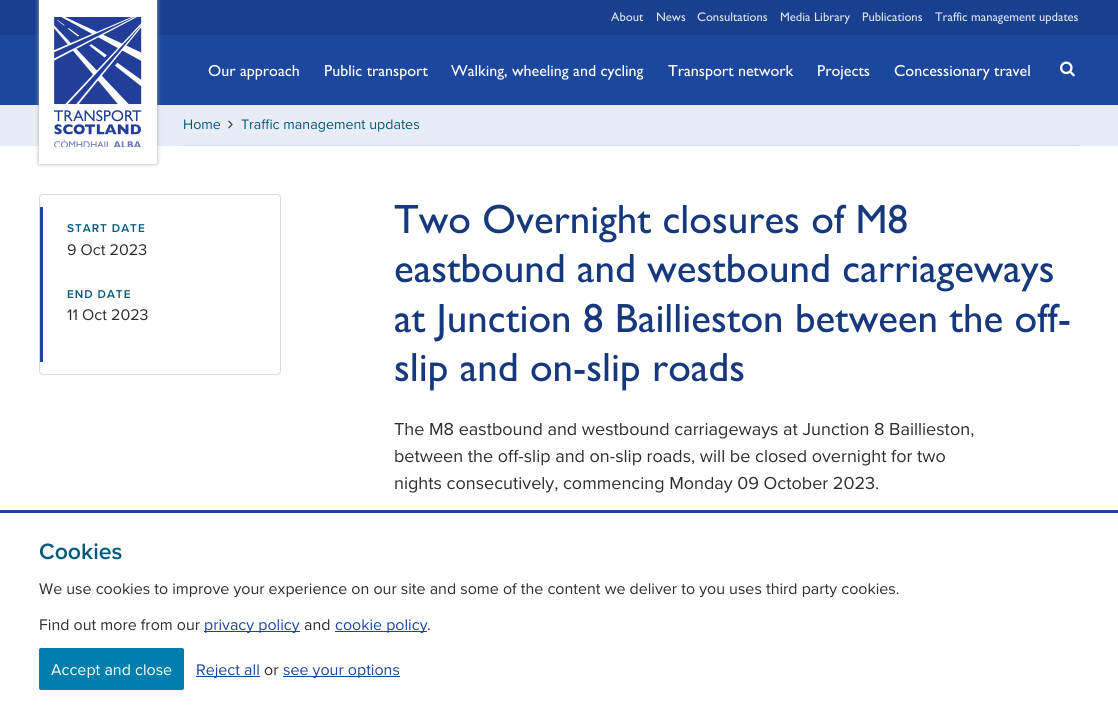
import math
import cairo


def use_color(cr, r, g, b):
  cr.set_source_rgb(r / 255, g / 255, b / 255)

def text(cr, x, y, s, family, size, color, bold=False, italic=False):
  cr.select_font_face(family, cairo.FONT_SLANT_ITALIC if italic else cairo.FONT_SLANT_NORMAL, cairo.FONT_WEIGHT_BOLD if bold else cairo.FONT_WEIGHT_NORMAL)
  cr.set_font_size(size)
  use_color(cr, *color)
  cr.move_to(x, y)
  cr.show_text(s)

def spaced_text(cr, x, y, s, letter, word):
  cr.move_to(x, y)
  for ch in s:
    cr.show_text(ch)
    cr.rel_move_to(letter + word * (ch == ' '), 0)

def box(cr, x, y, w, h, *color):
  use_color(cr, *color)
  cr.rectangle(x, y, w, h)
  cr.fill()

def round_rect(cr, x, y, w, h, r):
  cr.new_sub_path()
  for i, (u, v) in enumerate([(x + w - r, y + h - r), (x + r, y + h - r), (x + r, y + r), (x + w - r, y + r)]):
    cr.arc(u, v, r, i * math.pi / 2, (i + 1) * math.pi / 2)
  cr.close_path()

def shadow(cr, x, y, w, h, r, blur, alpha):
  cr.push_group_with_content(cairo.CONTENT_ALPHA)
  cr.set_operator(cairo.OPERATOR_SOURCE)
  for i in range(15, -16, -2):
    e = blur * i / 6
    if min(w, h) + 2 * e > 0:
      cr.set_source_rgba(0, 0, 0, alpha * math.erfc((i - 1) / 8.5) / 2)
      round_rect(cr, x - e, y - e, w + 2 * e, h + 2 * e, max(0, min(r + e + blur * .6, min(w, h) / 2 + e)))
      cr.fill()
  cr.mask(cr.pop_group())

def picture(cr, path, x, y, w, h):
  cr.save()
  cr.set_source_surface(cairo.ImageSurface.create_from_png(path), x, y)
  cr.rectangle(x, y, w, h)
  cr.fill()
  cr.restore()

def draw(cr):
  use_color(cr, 255, 255, 255)
  cr.paint()
  box(cr, 0, 35, 1118, 70, 28, 71, 158)
  box(cr, 0, 0, 1118, 35, 25, 64, 142)
  box(cr, 0, 105, 1118, 41, 232, 237, 245)
  use_color(cr, 170, 170, 170)
  shadow(cr, 39, 0, 118, 164, 0, 2, 1)
  box(cr, 39, 0, 118, 164, 255, 255, 255)
  picture(cr, "img_01.png", 54, 17, 88, 130)
  picture(cr, "img_02.png", 1060, 61, 15, 16)
  box(cr, 183, 145, 896, 1, 210, 218, 236)
  picture(cr, "img_03.png", 228, 120, 5, 9)
  round_rect(cr, 39.5, 194.5, 241, 180, 3.5)
  use_color(cr, 221, 221, 221)
  cr.set_line_width(1)
  cr.stroke()
  box(cr, 40, 207, 3, 155, 28, 71, 158)
  box(cr, 0, 510, 1118, 3, 28, 71, 158)
  box(cr, 204, 631, 96, 1, 28, 71, 158)
  box(cr, 335, 631, 92, 1, 28, 71, 158)
  use_color(cr, 0, 127, 175)
  round_rect(cr, 39, 648, 145, 42, 2)
  cr.fill()
  box(cr, 196, 676, 64, 1, 28, 71, 158)
  box(cr, 283, 676, 117, 1, 28, 71, 158)
  text(cr, 611, 21, "About", "Gill Sans Medium", 12.6, (221, 227, 240))
  text(cr, 656, 21, "News", "Gill Sans Medium", 12.6, (221, 227, 240))
  text(cr, 697, 21, "Consultations", "Gill Sans Medium", 12.6, (221, 227, 240))
  text(cr, 780, 21, "Media Library", "Gill Sans Medium", 12.6, (221, 227, 240))
  text(cr, 862, 21, "Publications", "Gill Sans Medium", 12.6, (221, 227, 240))
  text(cr, 935, 21, "Traffic management updates", "Gill Sans Medium", 12.6, (221, 227, 240))
  text(cr, 208, 76, "Our approach", "Gill Sans Medium", 16, (255, 255, 255))
  text(cr, 324, 76, "Public transport", "Gill Sans Medium", 16, (255, 255, 255))
  text(cr, 451, 76, "Walking, wheeling and cycling", "Gill Sans Medium", 16, (255, 255, 255))
  text(cr, 668, 76, "Transport network", "Gill Sans Medium", 16, (255, 255, 255))
  text(cr, 817, 76, "Projects", "Gill Sans Medium", 16, (255, 255, 255))
  text(cr, 894, 76, "Concessionary travel", "Gill Sans Medium", 16, (255, 255, 255))
  text(cr, 183, 129, "Home", "Proxima Nova", 14.25, (0, 89, 123))
  text(cr, 241, 129, "Traffic management updates", "Proxima Nova", 14.25, (0, 89, 123))
  cr.select_font_face("Proxima Nova SemiBold")
  cr.set_font_size(11.75)
  spaced_text(cr, 67, 232, "START DATE", 1, 0)
  text(cr, 67, 255, "9 Oct 2023", "Proxima Nova", 16, (45, 45, 45))
  cr.select_font_face("Proxima Nova SemiBold")
  cr.set_font_size(11.75)
  use_color(cr, 0, 89, 123)
  spaced_text(cr, 67, 298, "END DATE", 1, 0)
  text(cr, 67, 320, "11 Oct 2023", "Proxima Nova", 16, (45, 45, 45))
  text(cr, 394, 233, "Two Overnight closures of M8", "Gill Sans Medium", 41, (22, 57, 126))
  text(cr, 394, 282, "eastbound and westbound carriageways", "Gill Sans Medium", 41, (22, 57, 126))
  text(cr, 394, 332, "at Junction 8 Baillieston between the off-", "Gill Sans Medium", 41, (22, 57, 126))
  text(cr, 394, 381, "slip and on-slip roads", "Gill Sans Medium", 41, (22, 57, 126))
  text(cr, 394, 435, "The M8 eastbound and westbound carriageways at Junction 8 Baillieston,", "Proxima Nova", 18, (45, 45, 45))
  text(cr, 394, 462, "between the off-slip and on-slip roads, will be closed overnight for two", "Proxima Nova", 18, (45, 45, 45))
  text(cr, 394, 489, "nights consecutively, commencing Monday 09 October 2023.", "Proxima Nova", 18, (45, 45, 45))
  text(cr, 39, 559, "Cookies", "Proxima Nova SemiBold", 23, (0, 89, 123))
  text(cr, 39, 594, "We use cookies to improve your experience on our site and some of the content we deliver to you uses third party cookies.", "Proxima Nova", 16, (45, 45, 45))
  text(cr, 39, 630, "Find out more from our", "Proxima Nova", 16, (45, 45, 45))
  text(cr, 204, 630, "privacy policy", "Proxima Nova", 16, (28, 71, 158))
  text(cr, 304, 630, "and", "Proxima Nova", 16, (45, 45, 45))
  text(cr, 335, 630, "cookie policy", "Proxima Nova", 16, (28, 71, 158))
  text(cr, 427, 630, ".", "Proxima Nova", 16, (45, 45, 45))
  text(cr, 51, 675, "Accept and close", "Proxima Nova", 16, (255, 255, 255))
  text(cr, 196, 675, "Reject all", "Proxima Nova", 16, (28, 71, 158))
  text(cr, 264, 675, "or", "Proxima Nova", 16, (45, 45, 45))
  text(cr, 283, 675, "see your options", "Proxima Nova", 16, (28, 71, 158))


surface = cairo.ImageSurface(cairo.FORMAT_RGB24, 1118, 714)
cr = cairo.Context(surface)
options = cairo.FontOptions()
options.set_hint_metrics(cairo.HINT_METRICS_OFF)
options.set_hint_style(cairo.HINT_STYLE_NONE)
cr.set_font_options(options)
cr.set_miter_limit(4)
draw(cr)
surface.write_to_png("out.png")
